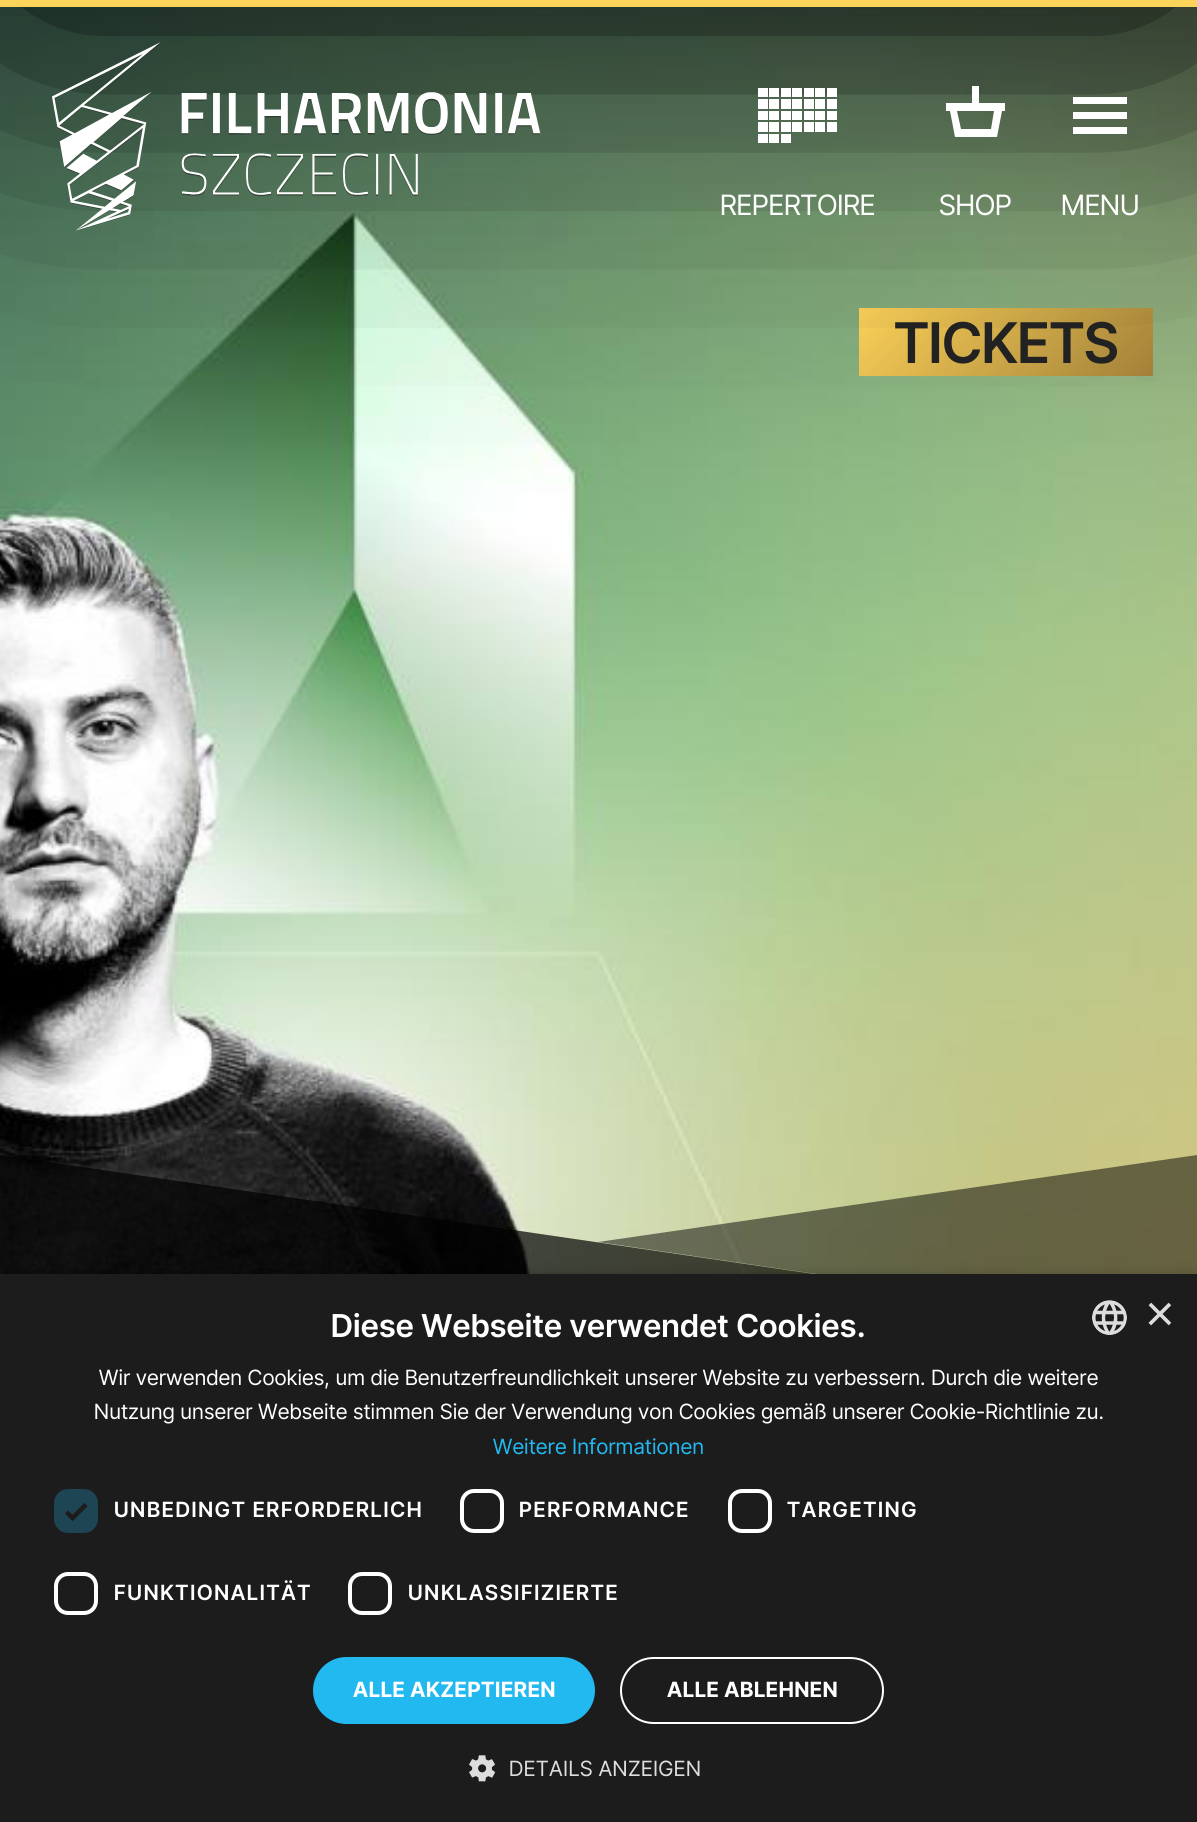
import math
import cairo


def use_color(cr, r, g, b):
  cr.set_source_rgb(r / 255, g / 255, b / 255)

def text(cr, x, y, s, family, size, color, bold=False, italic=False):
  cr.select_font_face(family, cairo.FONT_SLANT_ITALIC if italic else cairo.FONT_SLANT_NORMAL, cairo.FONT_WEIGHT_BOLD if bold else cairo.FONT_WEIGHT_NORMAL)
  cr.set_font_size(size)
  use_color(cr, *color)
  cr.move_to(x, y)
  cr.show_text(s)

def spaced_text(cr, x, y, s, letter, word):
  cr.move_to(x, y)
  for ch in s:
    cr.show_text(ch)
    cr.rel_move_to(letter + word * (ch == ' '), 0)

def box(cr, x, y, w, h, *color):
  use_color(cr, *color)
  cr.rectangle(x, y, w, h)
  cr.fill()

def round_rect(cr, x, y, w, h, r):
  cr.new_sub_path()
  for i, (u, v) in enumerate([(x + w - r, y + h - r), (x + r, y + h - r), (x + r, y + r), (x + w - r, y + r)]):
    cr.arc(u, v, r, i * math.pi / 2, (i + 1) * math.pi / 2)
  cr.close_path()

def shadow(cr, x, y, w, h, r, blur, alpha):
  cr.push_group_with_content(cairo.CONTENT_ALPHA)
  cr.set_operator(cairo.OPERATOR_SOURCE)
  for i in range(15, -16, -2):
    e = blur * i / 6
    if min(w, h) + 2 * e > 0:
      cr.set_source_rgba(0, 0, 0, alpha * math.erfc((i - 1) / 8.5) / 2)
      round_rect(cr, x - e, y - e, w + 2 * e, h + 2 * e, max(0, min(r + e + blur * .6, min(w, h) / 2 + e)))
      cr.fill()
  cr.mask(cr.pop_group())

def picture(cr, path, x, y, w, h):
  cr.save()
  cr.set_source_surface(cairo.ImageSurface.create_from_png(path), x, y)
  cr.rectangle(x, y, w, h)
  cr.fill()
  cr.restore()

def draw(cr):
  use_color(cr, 255, 255, 255)
  cr.paint()
  picture(cr, "img_01.png", 0, 7, 1197, 1267)
  gradient = cairo.LinearGradient(916, 252, 1097, 433)
  gradient.add_color_stop_rgba(0, 1, 0.831, 0.353, 1)
  gradient.add_color_stop_rgba(1, 0.647, 0.514, 0.224, 1)
  cr.set_source(gradient)
  cr.rectangle(859, 308, 294, 68)
  cr.fill()
  use_color(cr, 0, 0, 0)
  shadow(cr, 0, -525, 1197, 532, 0, 175, 1)
  box(cr, 0, 0, 1197, 7, 255, 212, 90)
  cr.set_source_rgba(0, 0, 0, 0.7)
  cr.new_path()
  cr.move_to(0, 1155)
  cr.line_to(1197, 1330)
  cr.line_to(0, 1330)
  cr.close_path()
  cr.fill()
  cr.set_source_rgba(0, 0, 0, 0.5)
  cr.new_path()
  cr.move_to(1197, 1155)
  cr.line_to(1197, 1330)
  cr.line_to(598, 1242)
  cr.close_path()
  cr.fill()
  picture(cr, "img_02.png", 52, 42, 489, 189)
  picture(cr, "img_03.png", 758, 88, 79, 55)
  use_color(cr, 255, 255, 255)
  cr.new_path()
  cr.move_to(979, 103)
  cr.line_to(979, 86)
  cr.line_to(972, 86)
  cr.line_to(972, 103)
  cr.line_to(946, 103)
  cr.line_to(946, 111)
  cr.line_to(950, 111)
  cr.line_to(955, 137)
  cr.line_to(997, 137)
  cr.line_to(1002, 111)
  cr.line_to(1005, 111)
  cr.line_to(1005, 103)
  cr.close_path()
  cr.move_to(961, 129)
  cr.line_to(957, 111)
  cr.line_to(994, 111)
  cr.line_to(991, 129)
  cr.close_path()
  cr.fill()
  box(cr, 1073, 97, 54, 7, 255, 255, 255)
  box(cr, 1073, 112, 54, 7, 255, 255, 255)
  box(cr, 1073, 127, 54, 7, 255, 255, 255)
  use_color(cr, 0, 0, 0)
  shadow(cr, 2, 1278, 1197, 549, 0, 7, 0.35)
  box(cr, 0, 1274, 1197, 548, 28, 28, 28)
  picture(cr, "img_04.png", 1092, 1300, 35, 35)
  use_color(cr, 30, 69, 83)
  round_rect(cr, 54, 1489, 44, 44, 14)
  cr.fill()
  cr.new_path()
  cr.move_to(66.5, 1512)
  cr.line_to(72.5, 1518)
  cr.line_to(86, 1504.5)
  use_color(cr, 28, 28, 28)
  cr.set_line_width(4.6)
  cr.stroke()
  round_rect(cr, 462, 1491, 40, 40, 12)
  use_color(cr, 255, 255, 255)
  cr.set_line_width(4)
  cr.stroke()
  round_rect(cr, 730, 1491, 40, 40, 12)
  cr.stroke()
  round_rect(cr, 56, 1574, 40, 39, 12)
  cr.stroke()
  round_rect(cr, 350, 1574, 40, 39, 12)
  cr.stroke()
  use_color(cr, 34, 184, 240)
  round_rect(cr, 313, 1657, 282, 67, 33.5)
  cr.fill()
  round_rect(cr, 621, 1658, 262, 65, 32.5)
  use_color(cr, 255, 255, 255)
  cr.set_line_width(2)
  cr.stroke()
  picture(cr, "img_05.png", 469, 1755, 26, 27)
  text(cr, 720, 215, "REPERTOIRE", "Inter Tight", 28, (255, 255, 255))
  text(cr, 939, 215, "SHOP", "Inter Tight", 28, (255, 255, 255))
  text(cr, 1061, 215, "MENU", "Inter Tight", 28, (255, 255, 255))
  text(cr, 894, 363, "TICKETS", "Inter Tight SemiBold", 56, (34, 34, 34))
  cr.set_font_size(31.5)
  use_color(cr, 255, 255, 255)
  spaced_text(cr, 331, 1337, "Diese Webseite verwendet Cookies.", 0.7, 0)
  text(cr, 1145, 1331, "×", "Liberation Sans", 51, (221, 221, 221))
  cr.select_font_face("Inter Tight")
  cr.set_font_size(21)
  use_color(cr, 255, 255, 255)
  spaced_text(cr, 99, 1385, "Wir verwenden Cookies, um die Benutzerfreundlichkeit unserer Website zu verbessern. Durch die weitere", 0.53, 0)
  spaced_text(cr, 94, 1419, "Nutzung unserer Webseite stimmen Sie der Verwendung von Cookies gemäß unserer Cookie-Richtlinie zu.", 0.53, 0)
  use_color(cr, 34, 184, 240)
  spaced_text(cr, 493, 1454, "Weitere Informationen", 0.53, 0)
  cr.select_font_face("Inter Tight SemiBold")
  use_color(cr, 255, 255, 255)
  spaced_text(cr, 114, 1517, "UNBEDINGT ERFORDERLICH", 1.75, 0)
  spaced_text(cr, 519, 1517, "PERFORMANCE", 1.75, 0)
  spaced_text(cr, 787, 1517, "TARGETING", 1.75, 0)
  spaced_text(cr, 114, 1600, "FUNKTIONALITÄT", 1.75, 0)
  spaced_text(cr, 408, 1600, "UNKLASSIFIZIERTE", 1.75, 0)
  cr.select_font_face("Inter Tight", cairo.FONT_SLANT_NORMAL, cairo.FONT_WEIGHT_BOLD)
  spaced_text(cr, 353, 1697, "ALLE AKZEPTIEREN", 0.7, 0)
  spaced_text(cr, 667, 1697, "ALLE ABLEHNEN", 0.7, 0)
  cr.select_font_face("Inter Tight")
  use_color(cr, 221, 221, 221)
  spaced_text(cr, 509, 1776, "DETAILS ANZEIGEN", 0.7, 0)


surface = cairo.ImageSurface(cairo.FORMAT_RGB24, 1197, 1822)
cr = cairo.Context(surface)
options = cairo.FontOptions()
options.set_hint_metrics(cairo.HINT_METRICS_OFF)
options.set_hint_style(cairo.HINT_STYLE_NONE)
cr.set_font_options(options)
cr.set_miter_limit(4)
draw(cr)
surface.write_to_png("out.png")
